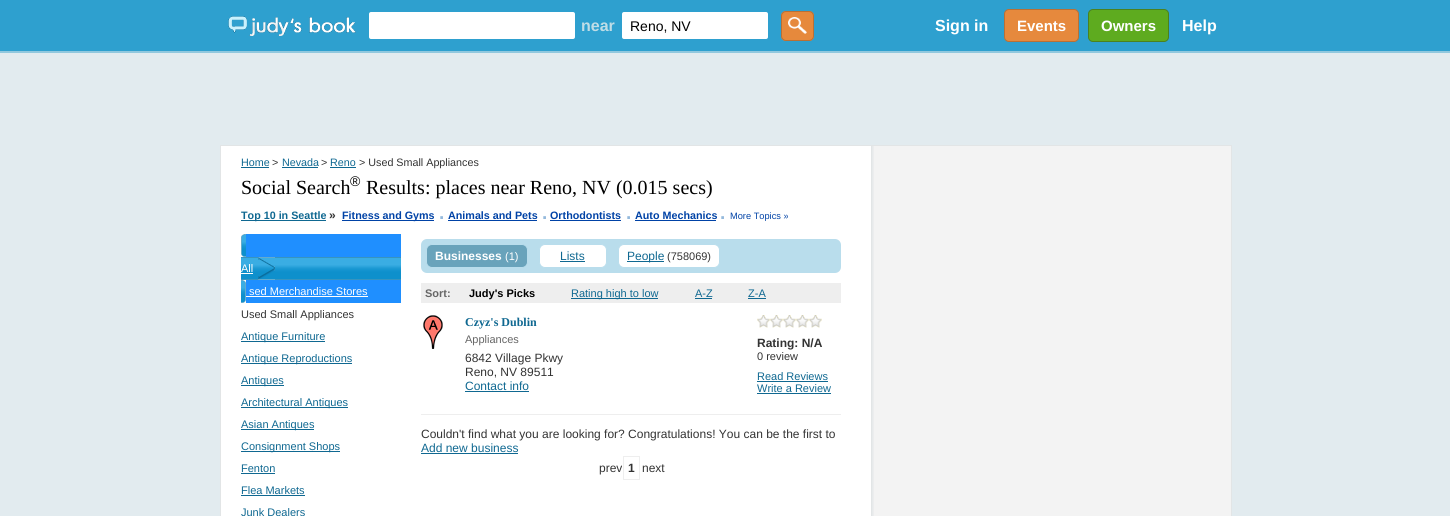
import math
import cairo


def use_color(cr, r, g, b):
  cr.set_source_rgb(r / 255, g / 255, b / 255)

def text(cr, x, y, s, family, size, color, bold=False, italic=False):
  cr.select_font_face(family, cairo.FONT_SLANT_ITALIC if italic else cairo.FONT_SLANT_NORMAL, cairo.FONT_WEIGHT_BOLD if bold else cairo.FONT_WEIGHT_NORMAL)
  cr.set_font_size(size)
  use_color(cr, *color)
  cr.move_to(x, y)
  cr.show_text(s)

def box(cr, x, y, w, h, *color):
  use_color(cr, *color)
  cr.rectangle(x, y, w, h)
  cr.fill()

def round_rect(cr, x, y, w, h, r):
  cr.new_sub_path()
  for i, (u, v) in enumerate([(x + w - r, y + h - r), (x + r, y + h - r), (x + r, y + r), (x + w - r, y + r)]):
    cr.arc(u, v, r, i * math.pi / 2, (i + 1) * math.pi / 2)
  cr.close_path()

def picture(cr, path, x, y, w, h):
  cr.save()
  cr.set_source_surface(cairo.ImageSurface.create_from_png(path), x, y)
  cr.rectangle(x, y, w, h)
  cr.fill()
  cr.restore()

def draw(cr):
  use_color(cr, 226, 235, 239)
  cr.paint()
  box(cr, 0, 0, 1450, 51, 46, 160, 207)
  box(cr, 0, 51, 1450, 2, 145, 200, 222)
  picture(cr, "img_01.png", 228, 16, 128, 20)
  use_color(cr, 255, 255, 255)
  round_rect(cr, 369, 12, 206, 27, 2)
  cr.fill()
  round_rect(cr, 622, 12, 146, 27, 2)
  cr.fill()
  use_color(cr, 230, 137, 60)
  round_rect(cr, 781, 11, 33, 30, 5)
  cr.fill()
  picture(cr, "img_02.png", 788, 17, 19, 17)
  round_rect(cr, 781.5, 11.5, 32, 29, 4.5)
  use_color(cr, 185, 112, 53)
  cr.set_line_width(1)
  cr.stroke()
  use_color(cr, 230, 137, 61)
  round_rect(cr, 1004.5, 9.5, 74, 32, 4.5)
  cr.fill_preserve()
  use_color(cr, 185, 112, 53)
  cr.stroke()
  use_color(cr, 94, 171, 31)
  round_rect(cr, 1088.5, 9.5, 80, 32, 4.5)
  cr.fill_preserve()
  use_color(cr, 75, 129, 31)
  cr.stroke()
  box(cr, 874, 146, 357, 370, 243, 243, 243)
  picture(cr, "img_03.png", 221, 146, 653, 370)
  cr.rectangle(220.5, 145.5, 1011, 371)
  use_color(cr, 226, 229, 230)
  cr.stroke()
  box(cr, 241, 167, 28, 1, 15, 104, 145)
  box(cr, 282, 167, 36, 1, 15, 104, 145)
  box(cr, 330, 167, 26, 1, 15, 104, 145)
  box(cr, 241, 220, 85, 1, 15, 104, 145)
  box(cr, 342, 220, 92, 1, 0, 66, 166)
  box(cr, 448, 220, 89, 1, 0, 66, 166)
  box(cr, 550, 220, 71, 1, 0, 66, 166)
  box(cr, 635, 220, 81, 1, 0, 66, 166)
  box(cr, 246, 234, 155, 69, 31, 143, 255)
  picture(cr, "img_04.png", 241, 234, 5, 23)
  picture(cr, "img_05.png", 241, 257, 160, 23)
  box(cr, 241, 273, 12, 1, 255, 255, 255)
  picture(cr, "img_06.png", 258, 257, 17, 23)
  box(cr, 241, 296, 127, 1, 255, 255, 255)
  picture(cr, "img_07.png", 241, 280, 5, 23)
  box(cr, 241, 341, 84, 1, 15, 104, 145)
  box(cr, 241, 363, 111, 1, 15, 104, 145)
  box(cr, 241, 385, 43, 1, 15, 104, 145)
  box(cr, 241, 407, 107, 1, 15, 104, 145)
  box(cr, 241, 429, 73, 1, 15, 104, 145)
  box(cr, 241, 451, 99, 1, 15, 104, 145)
  box(cr, 241, 473, 34, 1, 15, 104, 145)
  box(cr, 241, 495, 64, 1, 15, 104, 145)
  use_color(cr, 185, 221, 236)
  round_rect(cr, 421, 239, 420, 34, 6)
  cr.fill()
  use_color(cr, 105, 163, 187)
  round_rect(cr, 426.5, 244.5, 101, 23, 5.5)
  cr.fill_preserve()
  use_color(cr, 185, 221, 236)
  cr.stroke()
  use_color(cr, 255, 255, 255)
  round_rect(cr, 539.5, 244.5, 67, 23, 5.5)
  cr.fill_preserve()
  use_color(cr, 185, 221, 236)
  cr.stroke()
  box(cr, 560, 261, 25, 1, 15, 104, 145)
  use_color(cr, 255, 255, 255)
  round_rect(cr, 618.5, 244.5, 101, 23, 5.5)
  cr.fill_preserve()
  use_color(cr, 185, 221, 236)
  cr.stroke()
  box(cr, 627, 261, 37, 1, 15, 104, 145)
  box(cr, 421, 283, 420, 20, 238, 238, 238)
  box(cr, 571, 298, 87, 1, 15, 104, 145)
  box(cr, 695, 298, 17, 1, 15, 104, 145)
  box(cr, 748, 298, 18, 1, 15, 104, 145)
  box(cr, 421, 414, 420, 1, 238, 238, 238)
  picture(cr, "img_08.png", 423, 315, 20, 34)
  box(cr, 465, 391, 64, 1, 15, 104, 145)
  picture(cr, "img_09.png", 757, 315, 13, 13)
  picture(cr, "img_10.png", 770, 315, 13, 13)
  picture(cr, "img_10.png", 783, 315, 13, 13)
  picture(cr, "img_10.png", 796, 315, 13, 13)
  picture(cr, "img_10.png", 809, 315, 13, 13)
  box(cr, 757, 381, 71, 1, 15, 104, 145)
  box(cr, 757, 393, 74, 1, 15, 104, 145)
  box(cr, 421, 453, 97, 1, 15, 104, 145)
  cr.rectangle(623.5, 456.5, 16, 23)
  use_color(cr, 238, 238, 238)
  cr.stroke()
  text(cr, 581, 31, "near", "Liberation Sans", 16, (192, 221, 230), bold=True)
  text(cr, 630, 31, "Reno, NV", "Liberation Sans", 14, (0, 0, 0))
  text(cr, 935, 31, "Sign in", "Liberation Sans", 16, (255, 255, 255), bold=True)
  text(cr, 1017, 31, "Events", "Liberation Sans", 15, (255, 255, 255), bold=True)
  text(cr, 1101, 31, "Owners", "Liberation Sans", 15, (255, 255, 255), bold=True)
  text(cr, 1182, 31, "Help", "Liberation Sans", 16, (255, 255, 255), bold=True)
  text(cr, 241, 166, "Home", "Liberation Sans", 10.75, (15, 104, 145))
  text(cr, 272, 166, ">", "Liberation Sans", 10.75, (51, 51, 51))
  text(cr, 282, 166, "Nevada", "Liberation Sans", 10.75, (15, 104, 145))
  text(cr, 321, 166, ">", "Liberation Sans", 10.75, (51, 51, 51))
  text(cr, 330, 166, "Reno", "Liberation Sans", 10.75, (15, 104, 145))
  text(cr, 359, 166, "> Used Small Appliances", "Liberation Sans", 10.75, (51, 51, 51))
  text(cr, 241, 194, "Social Search", "Liberation Serif", 20, (0, 0, 0))
  text(cr, 350, 186, "®", "Liberation Sans", 14, (0, 0, 0))
  text(cr, 366, 194, "Results: places near Reno, NV (0.015 secs)", "Liberation Serif", 20, (0, 0, 0))
  text(cr, 241, 219, "Top 10 in Seattle", "Liberation Sans", 10.75, (15, 104, 145), bold=True)
  text(cr, 329, 219, "»", "Liberation Sans", 12, (51, 51, 51), bold=True)
  text(cr, 342, 219, "Fitness and Gyms", "Liberation Sans", 10.75, (0, 66, 166), bold=True)
  text(cr, 439, 219, ".", "Liberation Sans", 19, (148, 185, 220), bold=True)
  text(cr, 448, 219, "Animals and Pets", "Liberation Sans", 10.75, (0, 66, 166), bold=True)
  text(cr, 542, 219, ".", "Liberation Sans", 19, (148, 185, 220), bold=True)
  text(cr, 550, 219, "Orthodontists", "Liberation Sans", 10.75, (0, 66, 166), bold=True)
  text(cr, 626, 219, ".", "Liberation Sans", 19, (148, 185, 220), bold=True)
  text(cr, 635, 219, "Auto Mechanics", "Liberation Sans", 10.75, (0, 66, 166), bold=True)
  text(cr, 720, 219, ".", "Liberation Sans", 19, (148, 185, 220), bold=True)
  text(cr, 730, 219, "More Topics »", "Liberation Sans", 9.25, (0, 66, 166))
  text(cr, 241, 272, "All", "Liberation Sans", 11, (255, 255, 255))
  text(cr, 249, 295, "sed Merchandise Stores", "Liberation Sans", 11, (255, 255, 255))
  text(cr, 241, 318, "Used Small Appliances", "Liberation Sans", 11, (51, 51, 51))
  text(cr, 241, 340, "Antique Furniture", "Liberation Sans", 11, (15, 104, 145))
  text(cr, 241, 362, "Antique Reproductions", "Liberation Sans", 11, (15, 104, 145))
  text(cr, 241, 384, "Antiques", "Liberation Sans", 11, (15, 104, 145))
  text(cr, 241, 406, "Architectural Antiques", "Liberation Sans", 11, (15, 104, 145))
  text(cr, 241, 428, "Asian Antiques", "Liberation Sans", 11, (15, 104, 145))
  text(cr, 241, 450, "Consignment Shops", "Liberation Sans", 11, (15, 104, 145))
  text(cr, 241, 472, "Fenton", "Liberation Sans", 11, (15, 104, 145))
  text(cr, 241, 494, "Flea Markets", "Liberation Sans", 11, (15, 104, 145))
  text(cr, 241, 516, "Junk Dealers", "Liberation Sans", 11, (15, 104, 145))
  text(cr, 435, 260, "Businesses", "Liberation Sans", 12, (255, 255, 255), bold=True)
  text(cr, 505, 260, "(1)", "Liberation Sans", 11, (255, 255, 255))
  text(cr, 560, 260, "Lists", "Liberation Sans", 12, (15, 104, 145))
  text(cr, 627, 260, "People", "Liberation Sans", 12, (15, 104, 145))
  text(cr, 667, 260, "(758069)", "Liberation Sans", 11, (51, 51, 51))
  text(cr, 425, 297, "Sort:", "Liberation Sans", 11, (102, 102, 102), bold=True)
  text(cr, 469, 297, "Judy's Picks", "Liberation Sans", 11, (0, 0, 0), bold=True)
  text(cr, 571, 297, "Rating high to low", "Liberation Sans", 11, (15, 104, 145))
  text(cr, 695, 297, "A-Z", "Liberation Sans", 11, (15, 104, 145))
  text(cr, 748, 297, "Z-A", "Liberation Sans", 11, (15, 104, 145))
  text(cr, 465, 326, "Czyz's Dublin", "Liberation Serif", 12, (15, 104, 145), bold=True)
  text(cr, 465, 343, "Appliances", "Liberation Sans", 11, (102, 102, 102))
  text(cr, 465, 362, "6842 Village Pkwy", "Liberation Sans", 12, (51, 51, 51))
  text(cr, 465, 376, "Reno, NV 89511", "Liberation Sans", 12, (51, 51, 51))
  text(cr, 465, 390, "Contact info", "Liberation Sans", 12, (15, 104, 145))
  text(cr, 757, 347, "Rating: N/A", "Liberation Sans", 12, (51, 51, 51), bold=True)
  text(cr, 757, 360, "0 review", "Liberation Sans", 11, (51, 51, 51))
  text(cr, 757, 380, "Read Reviews", "Liberation Sans", 11, (15, 104, 145))
  text(cr, 757, 392, "Write a Review", "Liberation Sans", 11, (15, 104, 145))
  text(cr, 421, 438, "Couldn't find what you are looking for? Congratulations! You can be the first to", "Liberation Sans", 12, (51, 51, 51))
  text(cr, 421, 452, "Add new business", "Liberation Sans", 12, (15, 104, 145))
  text(cr, 599, 472, "prev", "Liberation Sans", 12, (51, 51, 51))
  text(cr, 628, 472, "1", "Liberation Sans", 12, (51, 51, 51), bold=True)
  text(cr, 642, 472, "next", "Liberation Sans", 12, (51, 51, 51))


surface = cairo.ImageSurface(cairo.FORMAT_RGB24, 1450, 516)
cr = cairo.Context(surface)
options = cairo.FontOptions()
options.set_hint_metrics(cairo.HINT_METRICS_OFF)
options.set_hint_style(cairo.HINT_STYLE_NONE)
cr.set_font_options(options)
cr.set_miter_limit(4)
draw(cr)
surface.write_to_png("out.png")
